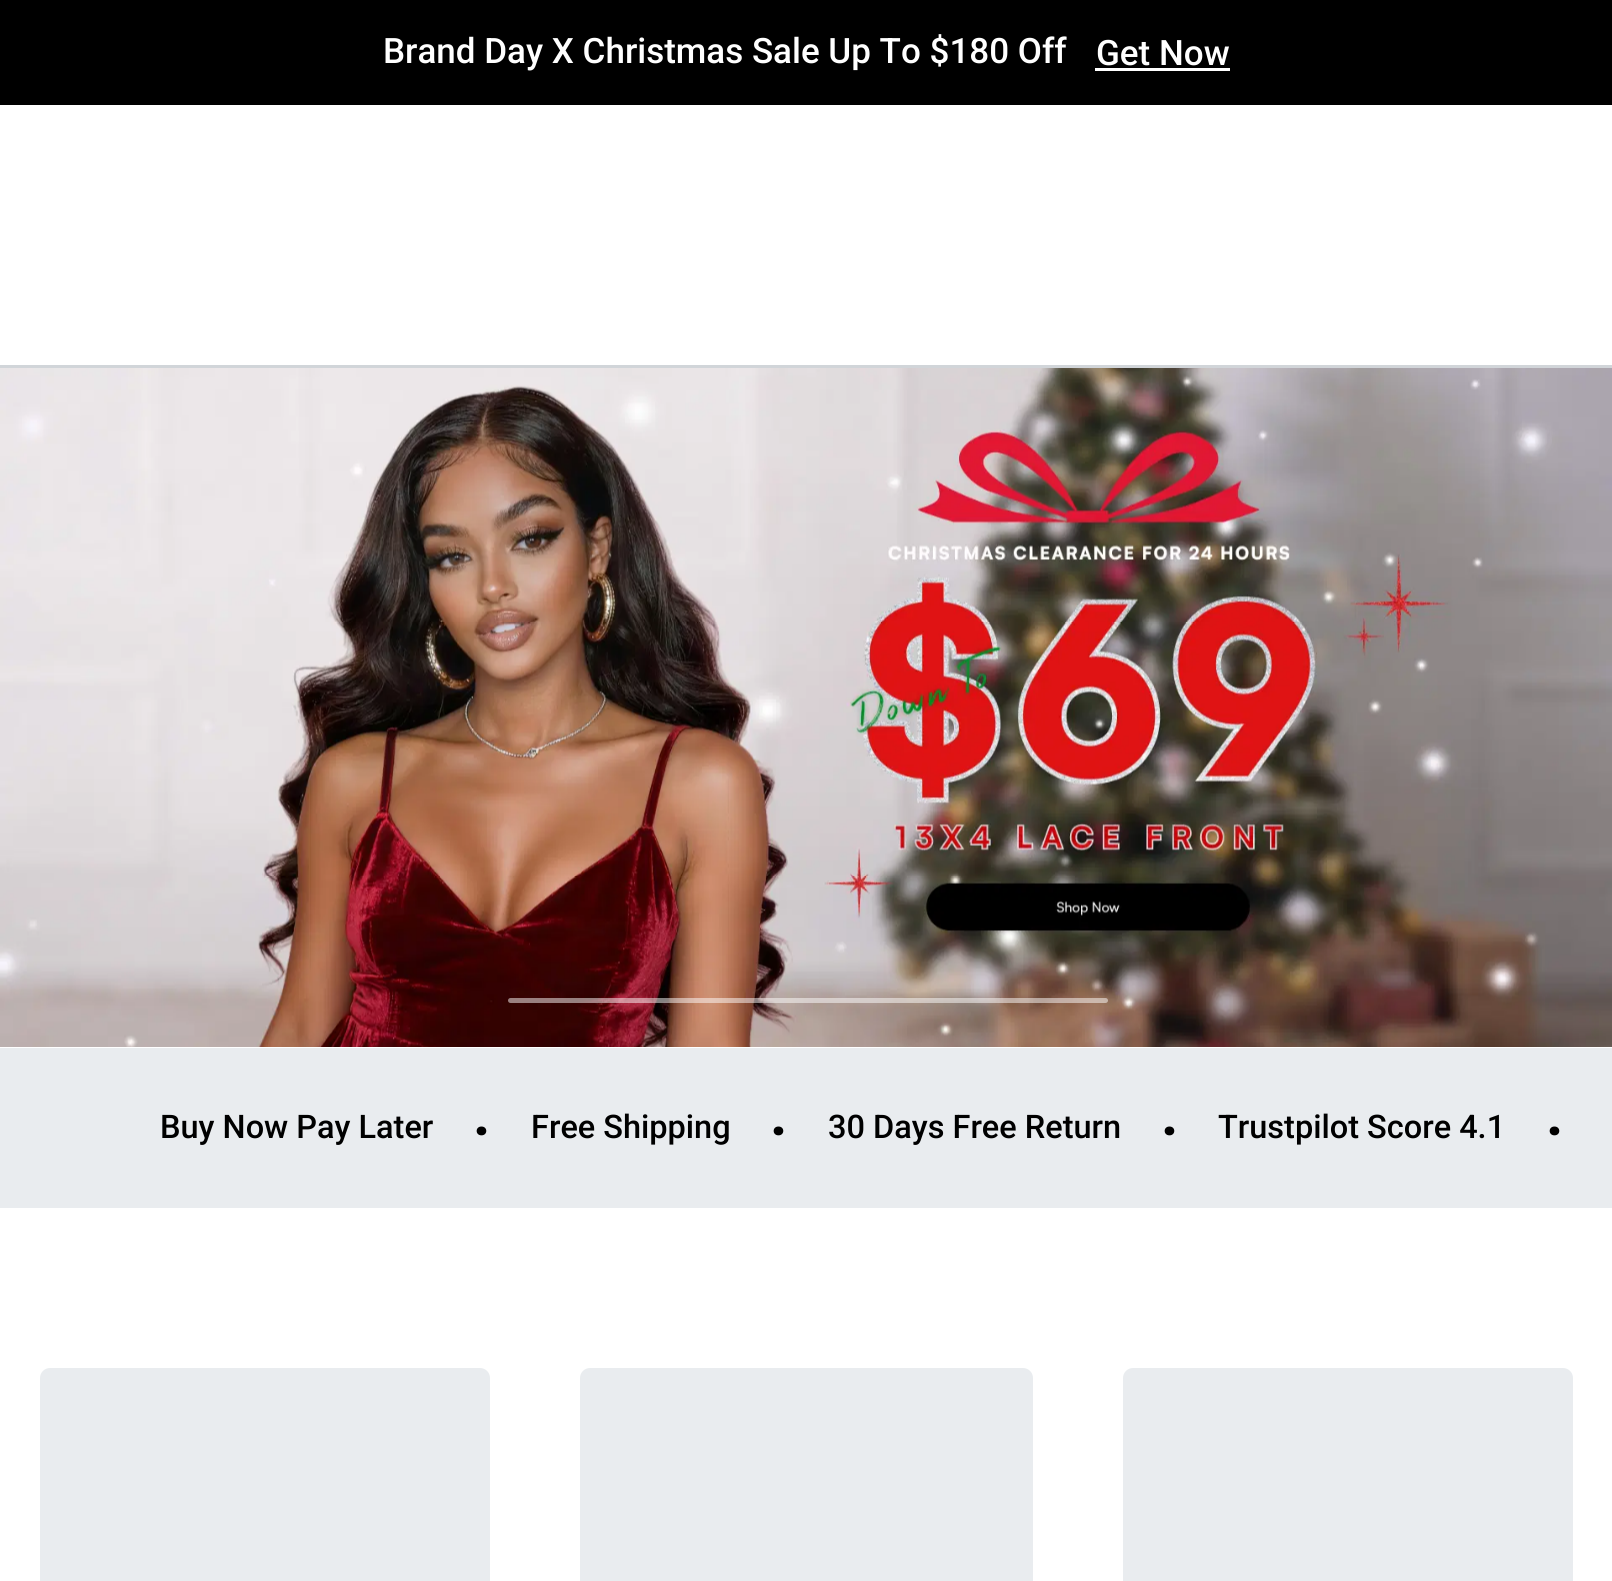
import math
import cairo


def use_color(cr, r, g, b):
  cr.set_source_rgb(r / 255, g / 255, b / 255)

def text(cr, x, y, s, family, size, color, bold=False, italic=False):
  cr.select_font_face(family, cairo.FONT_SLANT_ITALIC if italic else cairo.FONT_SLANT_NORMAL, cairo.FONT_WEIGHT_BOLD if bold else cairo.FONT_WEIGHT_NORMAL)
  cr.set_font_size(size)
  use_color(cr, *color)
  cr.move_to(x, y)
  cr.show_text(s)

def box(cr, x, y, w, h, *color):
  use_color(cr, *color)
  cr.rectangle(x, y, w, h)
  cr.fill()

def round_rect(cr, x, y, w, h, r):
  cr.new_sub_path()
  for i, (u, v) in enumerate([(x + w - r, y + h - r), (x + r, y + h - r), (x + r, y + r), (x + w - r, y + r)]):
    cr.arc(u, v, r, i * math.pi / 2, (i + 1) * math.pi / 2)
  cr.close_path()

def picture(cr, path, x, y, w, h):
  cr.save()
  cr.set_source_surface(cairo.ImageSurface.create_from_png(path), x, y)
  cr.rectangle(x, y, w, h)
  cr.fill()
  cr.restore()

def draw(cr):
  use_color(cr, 255, 255, 255)
  cr.paint()
  box(cr, 0, 0, 1612, 105, 0, 0, 0)
  box(cr, 1095, 68, 135, 3, 255, 255, 255)
  box(cr, 0, 365, 1612, 3, 209, 213, 217)
  picture(cr, "img_01.png", 0, 368, 1612, 679)
  cr.set_source_rgba(1, 1, 1, 0.5)
  round_rect(cr, 508, 998, 600, 5, 2.5)
  cr.fill()
  box(cr, 0, 1048, 1612, 160, 233, 236, 239)
  round_rect(cr, 40, 1368, 450, 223, 10)
  cr.fill()
  round_rect(cr, 580, 1368, 453, 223, 10)
  cr.fill()
  round_rect(cr, 1123, 1368, 450, 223, 10)
  cr.fill()
  text(cr, 383, 63, "Brand Day X Christmas Sale Up To $180 Off", "Roboto Medium", 35, (255, 255, 255))
  text(cr, 1096, 65, "Get Now", "Roboto Medium", 35, (255, 255, 255))
  text(cr, 160, 1138, "Buy Now Pay Later", "Roboto Medium", 32.5, (0, 0, 0))
  text(cr, 473, 1135, ".", "Roboto", 60, (0, 0, 0), bold=True)
  text(cr, 531, 1138, "Free Shipping", "Roboto Medium", 32.5, (0, 0, 0))
  text(cr, 770, 1135, ".", "Roboto", 60, (0, 0, 0), bold=True)
  text(cr, 828, 1138, "30 Days Free Return", "Roboto Medium", 32.5, (0, 0, 0))
  text(cr, 1161, 1135, ".", "Roboto", 60, (0, 0, 0), bold=True)
  text(cr, 1218, 1138, "Trustpilot Score 4.1", "Roboto Medium", 32.5, (0, 0, 0))
  text(cr, 1546, 1135, ".", "Roboto", 60, (0, 0, 0), bold=True)


surface = cairo.ImageSurface(cairo.FORMAT_RGB24, 1612, 1581)
cr = cairo.Context(surface)
options = cairo.FontOptions()
options.set_hint_metrics(cairo.HINT_METRICS_OFF)
options.set_hint_style(cairo.HINT_STYLE_NONE)
cr.set_font_options(options)
cr.set_miter_limit(4)
draw(cr)
surface.write_to_png("out.png")
